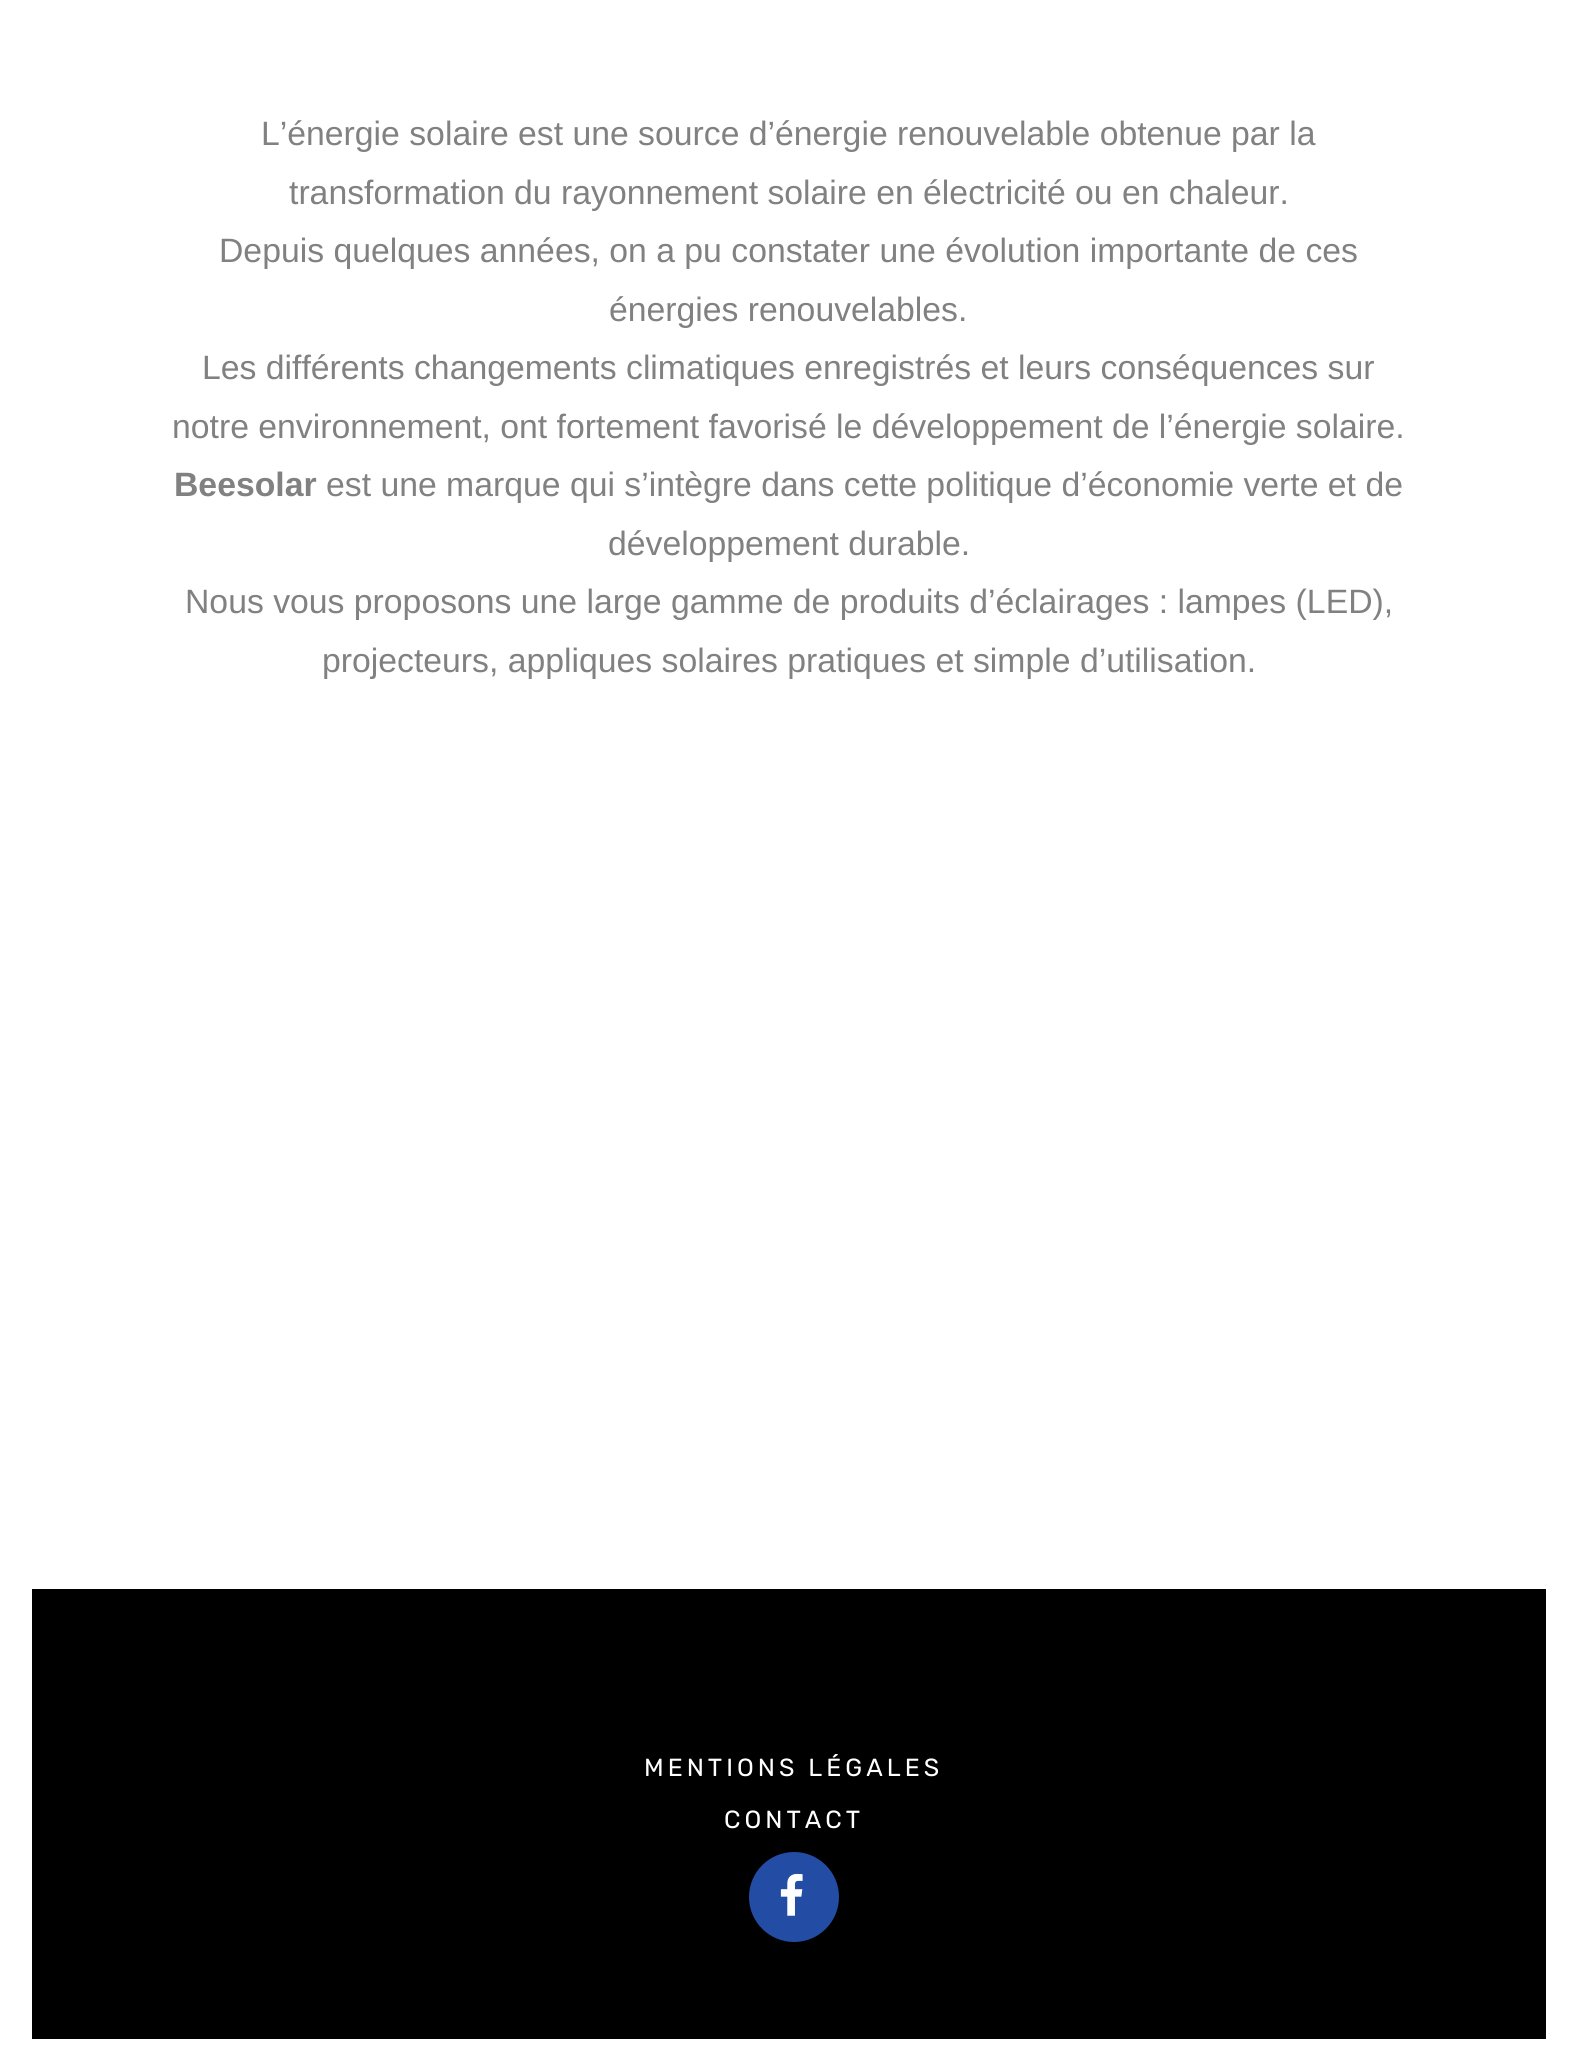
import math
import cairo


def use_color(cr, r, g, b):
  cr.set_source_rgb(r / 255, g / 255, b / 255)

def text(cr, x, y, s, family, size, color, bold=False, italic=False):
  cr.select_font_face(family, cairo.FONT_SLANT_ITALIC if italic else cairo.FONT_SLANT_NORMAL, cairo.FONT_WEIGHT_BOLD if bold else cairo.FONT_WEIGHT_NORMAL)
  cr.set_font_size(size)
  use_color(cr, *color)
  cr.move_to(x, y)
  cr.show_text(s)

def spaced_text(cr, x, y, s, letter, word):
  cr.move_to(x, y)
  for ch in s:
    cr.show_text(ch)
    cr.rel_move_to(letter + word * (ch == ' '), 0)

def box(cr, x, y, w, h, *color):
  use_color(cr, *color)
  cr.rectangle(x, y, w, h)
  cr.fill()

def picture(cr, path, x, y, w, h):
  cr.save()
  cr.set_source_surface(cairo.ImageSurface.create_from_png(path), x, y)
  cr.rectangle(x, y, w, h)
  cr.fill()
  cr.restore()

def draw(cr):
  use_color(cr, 255, 255, 255)
  cr.paint()
  box(cr, 32, 1589, 1514, 450, 0, 0, 0)
  use_color(cr, 35, 76, 165)
  cr.arc(794, 1897, 45, 0, 2 * math.pi)
  cr.fill()
  picture(cr, "img_01.png", 780, 1873, 23, 43)
  text(cr, 261, 145, "L’énergie solaire est une source d’énergie renouvelable obtenue par la", "Liberation Sans", 33.75, (129, 129, 129))
  text(cr, 289, 204, "transformation du rayonnement solaire en électricité ou en chaleur.", "Liberation Sans", 33.75, (129, 129, 129))
  text(cr, 219, 262, "Depuis quelques années, on a pu constater une évolution importante de ces", "Liberation Sans", 33.75, (129, 129, 129))
  text(cr, 609, 321, "énergies renouvelables.", "Liberation Sans", 33.75, (129, 129, 129))
  text(cr, 202, 379, "Les différents changements climatiques enregistrés et leurs conséquences sur", "Liberation Sans", 33.75, (129, 129, 129))
  text(cr, 172, 438, "notre environnement, ont fortement favorisé le développement de l’énergie solaire.", "Liberation Sans", 33.75, (129, 129, 129))
  text(cr, 174, 496, "Beesolar", "Liberation Sans", 33.75, (129, 129, 129), bold=True)
  text(cr, 326, 496, "est une marque qui s’intègre dans cette politique d’économie verte et de", "Liberation Sans", 33.75, (129, 129, 129))
  text(cr, 608, 555, "développement durable.", "Liberation Sans", 33.75, (129, 129, 129))
  text(cr, 185, 613, "Nous vous proposons une large gamme de produits d’éclairages : lampes (LED),", "Liberation Sans", 33.75, (129, 129, 129))
  text(cr, 322, 672, "projecteurs, appliques solaires pratiques et simple d’utilisation.", "Liberation Sans", 33.75, (129, 129, 129))
  cr.select_font_face("Rubik")
  cr.set_font_size(24.75)
  use_color(cr, 255, 255, 255)
  spaced_text(cr, 644, 1776, "MENTIONS LÉGALES", 4, 0)
  spaced_text(cr, 724, 1828, "CONTACT", 4, 0)


surface = cairo.ImageSurface(cairo.FORMAT_RGB24, 1577, 2068)
cr = cairo.Context(surface)
options = cairo.FontOptions()
options.set_hint_metrics(cairo.HINT_METRICS_OFF)
options.set_hint_style(cairo.HINT_STYLE_NONE)
cr.set_font_options(options)
cr.set_miter_limit(4)
draw(cr)
surface.write_to_png("out.png")
